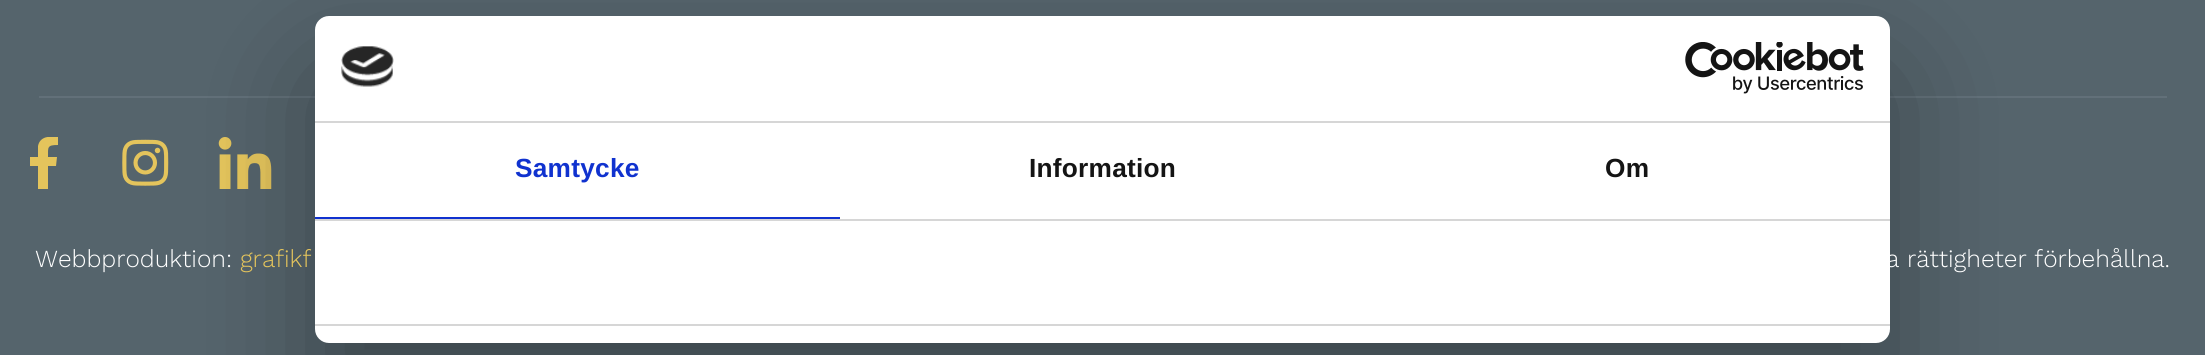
import math
import cairo


def use_color(cr, r, g, b):
  cr.set_source_rgb(r / 255, g / 255, b / 255)

def text(cr, x, y, s, family, size, color, bold=False, italic=False):
  cr.select_font_face(family, cairo.FONT_SLANT_ITALIC if italic else cairo.FONT_SLANT_NORMAL, cairo.FONT_WEIGHT_BOLD if bold else cairo.FONT_WEIGHT_NORMAL)
  cr.set_font_size(size)
  use_color(cr, *color)
  cr.move_to(x, y)
  cr.show_text(s)

def spaced_text(cr, x, y, s, letter, word):
  cr.move_to(x, y)
  for ch in s:
    cr.show_text(ch)
    cr.rel_move_to(letter + word * (ch == ' '), 0)

def box(cr, x, y, w, h, *color):
  use_color(cr, *color)
  cr.rectangle(x, y, w, h)
  cr.fill()

def round_rect(cr, x, y, w, h, r):
  cr.new_sub_path()
  for i, (u, v) in enumerate([(x + w - r, y + h - r), (x + r, y + h - r), (x + r, y + r), (x + w - r, y + r)]):
    cr.arc(u, v, r, i * math.pi / 2, (i + 1) * math.pi / 2)
  cr.close_path()

def shadow(cr, x, y, w, h, r, blur, alpha):
  cr.push_group_with_content(cairo.CONTENT_ALPHA)
  cr.set_operator(cairo.OPERATOR_SOURCE)
  for i in range(15, -16, -2):
    e = blur * i / 6
    if min(w, h) + 2 * e > 0:
      cr.set_source_rgba(0, 0, 0, alpha * math.erfc((i - 1) / 8.5) / 2)
      round_rect(cr, x - e, y - e, w + 2 * e, h + 2 * e, max(0, min(r + e + blur * .6, min(w, h) / 2 + e)))
      cr.fill()
  cr.mask(cr.pop_group())

def picture(cr, path, x, y, w, h):
  cr.save()
  cr.set_source_surface(cairo.ImageSurface.create_from_png(path), x, y)
  cr.rectangle(x, y, w, h)
  cr.fill()
  cr.restore()

def draw(cr):
  use_color(cr, 85, 100, 108)
  cr.paint()
  box(cr, 39, 96, 2128, 2, 98, 112, 121)
  picture(cr, "img_03.png", 122, 139, 47, 47)
  picture(cr, "img_04.png", 218, 137, 54, 52)
  use_color(cr, 0, 0, 0)
  shadow(cr, 315, 72, 1575, 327, 14, 59.5, 0.3)
  use_color(cr, 255, 255, 255)
  round_rect(cr, 315, 16, 1575, 327, 14)
  cr.fill()
  box(cr, 315, 121, 1575, 2, 214, 214, 214)
  picture(cr, "img_01.png", 341, 46, 53, 41)
  picture(cr, "img_02.png", 1685, 42, 179, 52)
  box(cr, 315, 219, 1575, 2, 214, 214, 214)
  box(cr, 315, 217, 525, 2, 16, 50, 207)
  box(cr, 315, 324, 1575, 2, 214, 214, 214)
  cr.save()
  cr.rectangle(18, 137, 52, 52)
  cr.clip()
  use_color(cr, 228, 196, 92)
  cr.new_path()
  cr.move_to(56, 166)
  cr.line_to(57, 157)
  cr.line_to(48, 157)
  cr.curve_to(48, 147, 47, 145, 58, 145)
  cr.line_to(58, 137)
  cr.curve_to(50, 136, 40, 136, 38, 146)
  cr.line_to(38, 157)
  cr.line_to(30, 157)
  cr.line_to(30, 166)
  cr.line_to(38, 166)
  cr.line_to(38, 189)
  cr.line_to(48, 189)
  cr.line_to(48, 166)
  cr.close_path()
  cr.fill()
  cr.restore()
  cr.select_font_face("Liberation Sans", cairo.FONT_SLANT_NORMAL, cairo.FONT_WEIGHT_BOLD)
  cr.set_font_size(26.25)
  use_color(cr, 16, 50, 207)
  spaced_text(cr, 515, 177, "Samtycke", 0.25, 0)
  use_color(cr, 20, 20, 20)
  spaced_text(cr, 1029, 177, "Information", 0.25, 0)
  spaced_text(cr, 1605, 177, "Om", 0.25, 0)
  text(cr, 35, 267, "Webbproduktion:", "Work Sans Light", 24.5, (255, 255, 255))
  text(cr, 240, 267, "grafikf", "Work Sans Light", 24.5, (228, 196, 92))
  text(cr, 1886, 267, "a rättigheter förbehållna.", "Work Sans Light", 24.5, (255, 255, 255))


surface = cairo.ImageSurface(cairo.FORMAT_RGB24, 2205, 355)
cr = cairo.Context(surface)
options = cairo.FontOptions()
options.set_hint_metrics(cairo.HINT_METRICS_OFF)
options.set_hint_style(cairo.HINT_STYLE_NONE)
cr.set_font_options(options)
cr.set_miter_limit(4)
draw(cr)
surface.write_to_png("out.png")
